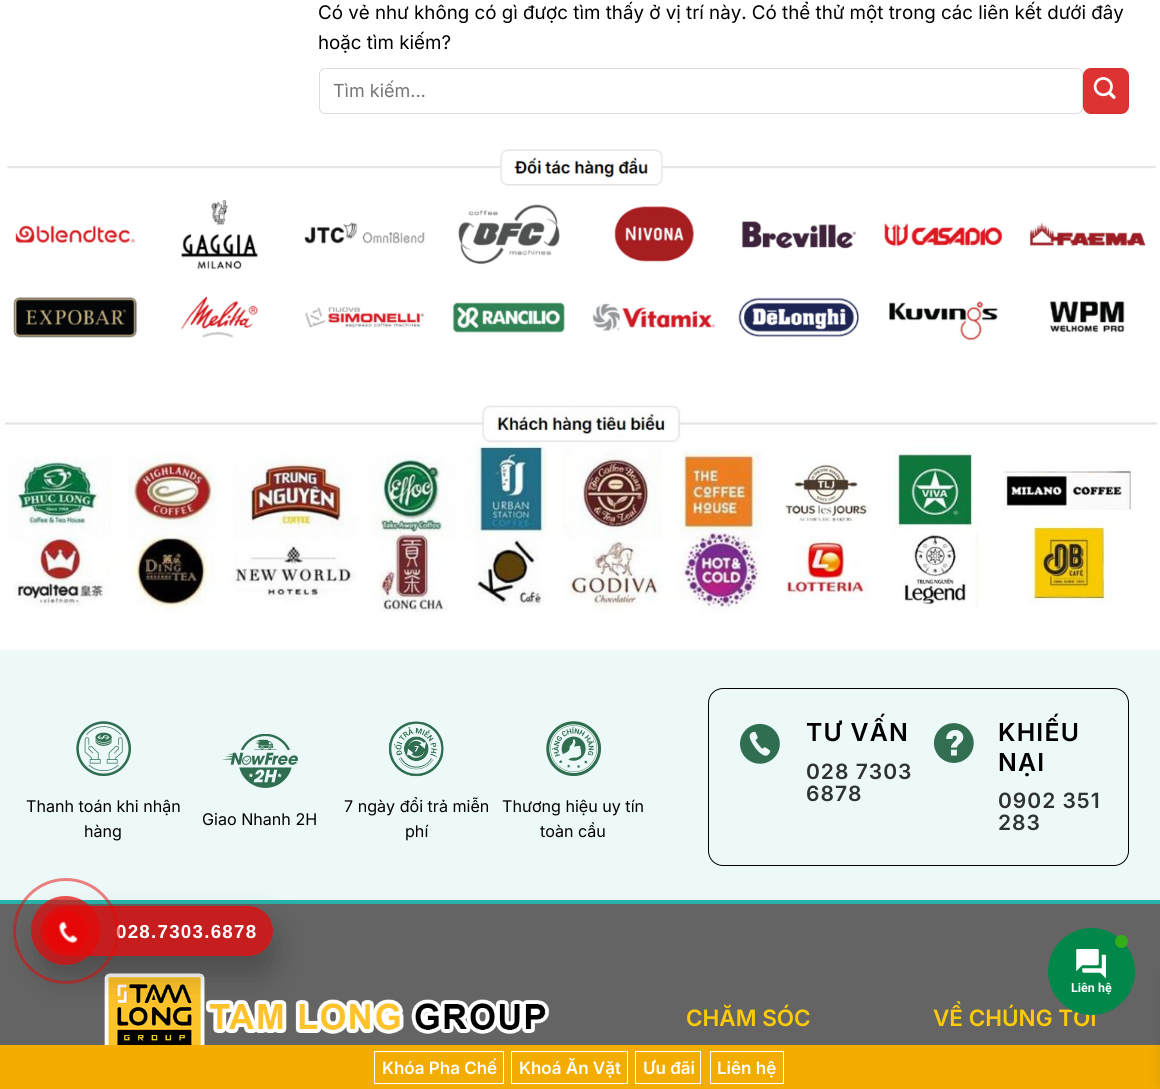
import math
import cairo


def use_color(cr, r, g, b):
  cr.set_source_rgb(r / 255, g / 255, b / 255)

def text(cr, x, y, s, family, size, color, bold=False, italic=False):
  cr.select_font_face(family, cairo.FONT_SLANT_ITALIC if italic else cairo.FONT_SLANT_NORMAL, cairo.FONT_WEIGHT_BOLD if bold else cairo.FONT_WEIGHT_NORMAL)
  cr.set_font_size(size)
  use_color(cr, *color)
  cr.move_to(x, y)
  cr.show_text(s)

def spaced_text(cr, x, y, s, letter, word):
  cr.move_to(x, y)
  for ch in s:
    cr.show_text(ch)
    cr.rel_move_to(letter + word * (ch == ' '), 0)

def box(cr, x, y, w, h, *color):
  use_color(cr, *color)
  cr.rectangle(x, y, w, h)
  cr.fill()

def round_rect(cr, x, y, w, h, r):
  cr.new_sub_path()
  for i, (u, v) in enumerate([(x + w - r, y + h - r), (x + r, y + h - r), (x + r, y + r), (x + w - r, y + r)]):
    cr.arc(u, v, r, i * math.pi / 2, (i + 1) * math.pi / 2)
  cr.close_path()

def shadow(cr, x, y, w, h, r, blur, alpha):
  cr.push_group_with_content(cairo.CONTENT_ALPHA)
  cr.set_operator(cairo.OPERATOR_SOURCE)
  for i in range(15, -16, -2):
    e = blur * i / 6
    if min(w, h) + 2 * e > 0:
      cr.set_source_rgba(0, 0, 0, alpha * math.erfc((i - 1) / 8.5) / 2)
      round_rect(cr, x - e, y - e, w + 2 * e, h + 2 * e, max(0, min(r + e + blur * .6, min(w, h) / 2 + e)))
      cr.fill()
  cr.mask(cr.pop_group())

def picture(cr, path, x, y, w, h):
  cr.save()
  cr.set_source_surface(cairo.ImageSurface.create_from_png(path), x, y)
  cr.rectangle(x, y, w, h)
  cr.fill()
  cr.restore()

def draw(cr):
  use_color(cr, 255, 255, 255)
  cr.paint()
  round_rect(cr, 319.5, 68.5, 763, 45, 5.5)
  use_color(cr, 221, 221, 221)
  cr.set_line_width(1)
  cr.stroke()
  use_color(cr, 221, 51, 51)
  round_rect(cr, 1083, 68, 46, 46, 8)
  cr.fill()
  cr.rectangle(1083.5, 68.5, 45, 45)
  cr.set_source_rgba(0, 0, 0, 0.05)
  cr.stroke()
  picture(cr, "img_01.png", 1093, 77, 23, 22)
  picture(cr, "img_02.png", 7, 149, 1149, 192)
  picture(cr, "img_03.png", 0, 405, 1158, 207)
  box(cr, 0, 650, 1160, 250, 237, 249, 248)
  picture(cr, "img_04.png", 76, 721, 55, 55)
  picture(cr, "img_05.png", 222, 734, 76, 54)
  picture(cr, "img_06.png", 388, 721, 56, 56)
  picture(cr, "img_07.png", 546, 721, 55, 55)
  round_rect(cr, 708.5, 688.5, 420, 177, 14.5)
  use_color(cr, 0, 0, 0)
  cr.stroke()
  picture(cr, "img_08.png", 740, 723, 40, 41)
  picture(cr, "img_09.png", 933, 723, 41, 40)
  box(cr, 0, 900, 1160, 4, 40, 178, 169)
  box(cr, 0, 904, 1160, 141, 100, 100, 100)
  picture(cr, "img_10.png", 104, 973, 446, 72)
  cr.save()
  cr.set_fill_rule(cairo.FILL_RULE_EVEN_ODD)
  cr.new_path()
  cr.move_to(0, 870)
  cr.line_to(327, 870)
  cr.line_to(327, 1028)
  cr.line_to(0, 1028)
  cr.close_path()
  cr.move_to(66, 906)
  cr.line_to(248, 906)
  cr.curve_to(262, 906, 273, 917, 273, 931)
  cr.curve_to(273, 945, 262, 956, 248, 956)
  cr.line_to(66, 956)
  cr.curve_to(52, 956, 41, 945, 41, 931)
  cr.curve_to(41, 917, 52, 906, 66, 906)
  cr.close_path()
  cr.clip()
  use_color(cr, 0, 0, 0)
  shadow(cr, 41, 924, 232, 50, 25, 17.5, 0.25)
  cr.restore()
  cr.set_source_rgba(0.902, 0.031, 0.031, 0.75)
  round_rect(cr, 41, 906, 232, 50, 25)
  cr.fill()
  box(cr, 0, 1045, 1160, 44, 243, 172, 0)
  use_color(cr, 0, 0, 0)
  shadow(cr, 1160, 980, 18, 104, 0, 6, 0.1)
  cr.rectangle(374.5, 1051.5, 129, 32)
  use_color(cr, 255, 255, 255)
  cr.stroke()
  cr.rectangle(511.5, 1051.5, 116, 32)
  cr.stroke()
  cr.rectangle(635.5, 1051.5, 65, 32)
  cr.stroke()
  cr.rectangle(710.5, 1051.5, 73, 32)
  cr.stroke()
  text(cr, 318, 19, "Có vẻ như không có gì được tìm thấy ở vị trí này. Có thể thử một trong các liên kết dưới đây", "Inter", 18.75, (0, 0, 0))
  text(cr, 318, 49, "hoặc tìm kiếm?", "Inter", 18.75, (0, 0, 0))
  text(cr, 333, 97, "Tìm kiếm…", "Inter", 18, (117, 117, 117))
  text(cr, 26, 812, "Thanh toán khi nhận", "Inter", 16.1, (0, 0, 0))
  text(cr, 84, 837, "hàng", "Inter", 16.1, (0, 0, 0))
  text(cr, 202, 825, "Giao Nhanh 2H", "Inter", 16.1, (0, 0, 0))
  text(cr, 344, 812, "7 ngày đổi trả miễn", "Inter", 16.1, (0, 0, 0))
  text(cr, 405, 837, "phí", "Inter", 16.1, (0, 0, 0))
  text(cr, 502, 812, "Thương hiệu uy tín", "Inter", 16.1, (0, 0, 0))
  text(cr, 540, 837, "toàn cầu", "Inter", 16.1, (0, 0, 0))
  cr.select_font_face("Inter SemiBold")
  cr.set_font_size(24.75)
  spaced_text(cr, 806, 741, "TƯ VẤN", 1.25, 0)
  cr.set_font_size(21)
  use_color(cr, 47, 50, 50)
  spaced_text(cr, 806, 779, "028 7303", 1, 0)
  spaced_text(cr, 806, 801, "6878", 1, 0)
  cr.set_font_size(24.75)
  use_color(cr, 0, 0, 0)
  spaced_text(cr, 998, 741, "KHIẾU", 1.25, 0)
  spaced_text(cr, 998, 771, "NẠI", 1.25, 0)
  cr.set_font_size(21)
  use_color(cr, 47, 50, 50)
  spaced_text(cr, 998, 808, "0902 351", 1, 0)
  spaced_text(cr, 998, 830, "283", 1, 0)
  text(cr, 686, 1026, "CHĂM SÓC", "Inter SemiBold", 22.5, (255, 203, 8))
  text(cr, 933, 1026, "VỀ CHÚNG TÔI", "Inter SemiBold", 22.5, (255, 203, 8))
  cr.select_font_face("Liberation Sans", cairo.FONT_SLANT_NORMAL, cairo.FONT_WEIGHT_BOLD)
  cr.set_font_size(18.75)
  use_color(cr, 255, 255, 255)
  spaced_text(cr, 116, 938, "028.7303.6878", 1.25, 0)
  cr.new_path()
  cr.arc(66, 931, 51.5, 0, 2 * math.pi)
  cr.set_source_rgba(0.902, 0.031, 0.031, 0.5)
  cr.set_line_width(3)
  cr.stroke()
  cr.set_source_rgba(0.902, 0.031, 0.031, 0.7)
  cr.arc(65.5, 930.5, 34.5, 0, 2 * math.pi)
  cr.fill()
  use_color(cr, 230, 8, 8)
  cr.arc(67, 932, 21, 0, 2 * math.pi)
  cr.fill()
  picture(cr, "img_11.png", 58, 921, 20, 23)
  use_color(cr, 0, 135, 73)
  cr.arc(1091.5, 971.5, 43.5, 0, 2 * math.pi)
  cr.fill()
  use_color(cr, 53, 172, 25)
  cr.arc(1121.5, 941.5, 6.5, 0, 2 * math.pi)
  cr.fill()
  picture(cr, "img_12.png", 1076, 949, 30, 30)
  text(cr, 1071, 992, "Liên hệ", "Roboto", 12.5, (255, 255, 255), bold=True)
  text(cr, 382, 1074, "Khóa Pha Chế", "Inter SemiBold", 17, (255, 255, 255))
  text(cr, 519, 1074, "Khoá Ăn Vặt", "Inter SemiBold", 17, (255, 255, 255))
  text(cr, 643, 1074, "Ưu đãi", "Inter SemiBold", 17, (255, 255, 255))
  text(cr, 717, 1074, "Liên hệ", "Inter SemiBold", 17, (255, 255, 255))


surface = cairo.ImageSurface(cairo.FORMAT_RGB24, 1160, 1089)
cr = cairo.Context(surface)
options = cairo.FontOptions()
options.set_hint_metrics(cairo.HINT_METRICS_OFF)
options.set_hint_style(cairo.HINT_STYLE_NONE)
cr.set_font_options(options)
cr.set_miter_limit(4)
draw(cr)
surface.write_to_png("out.png")
